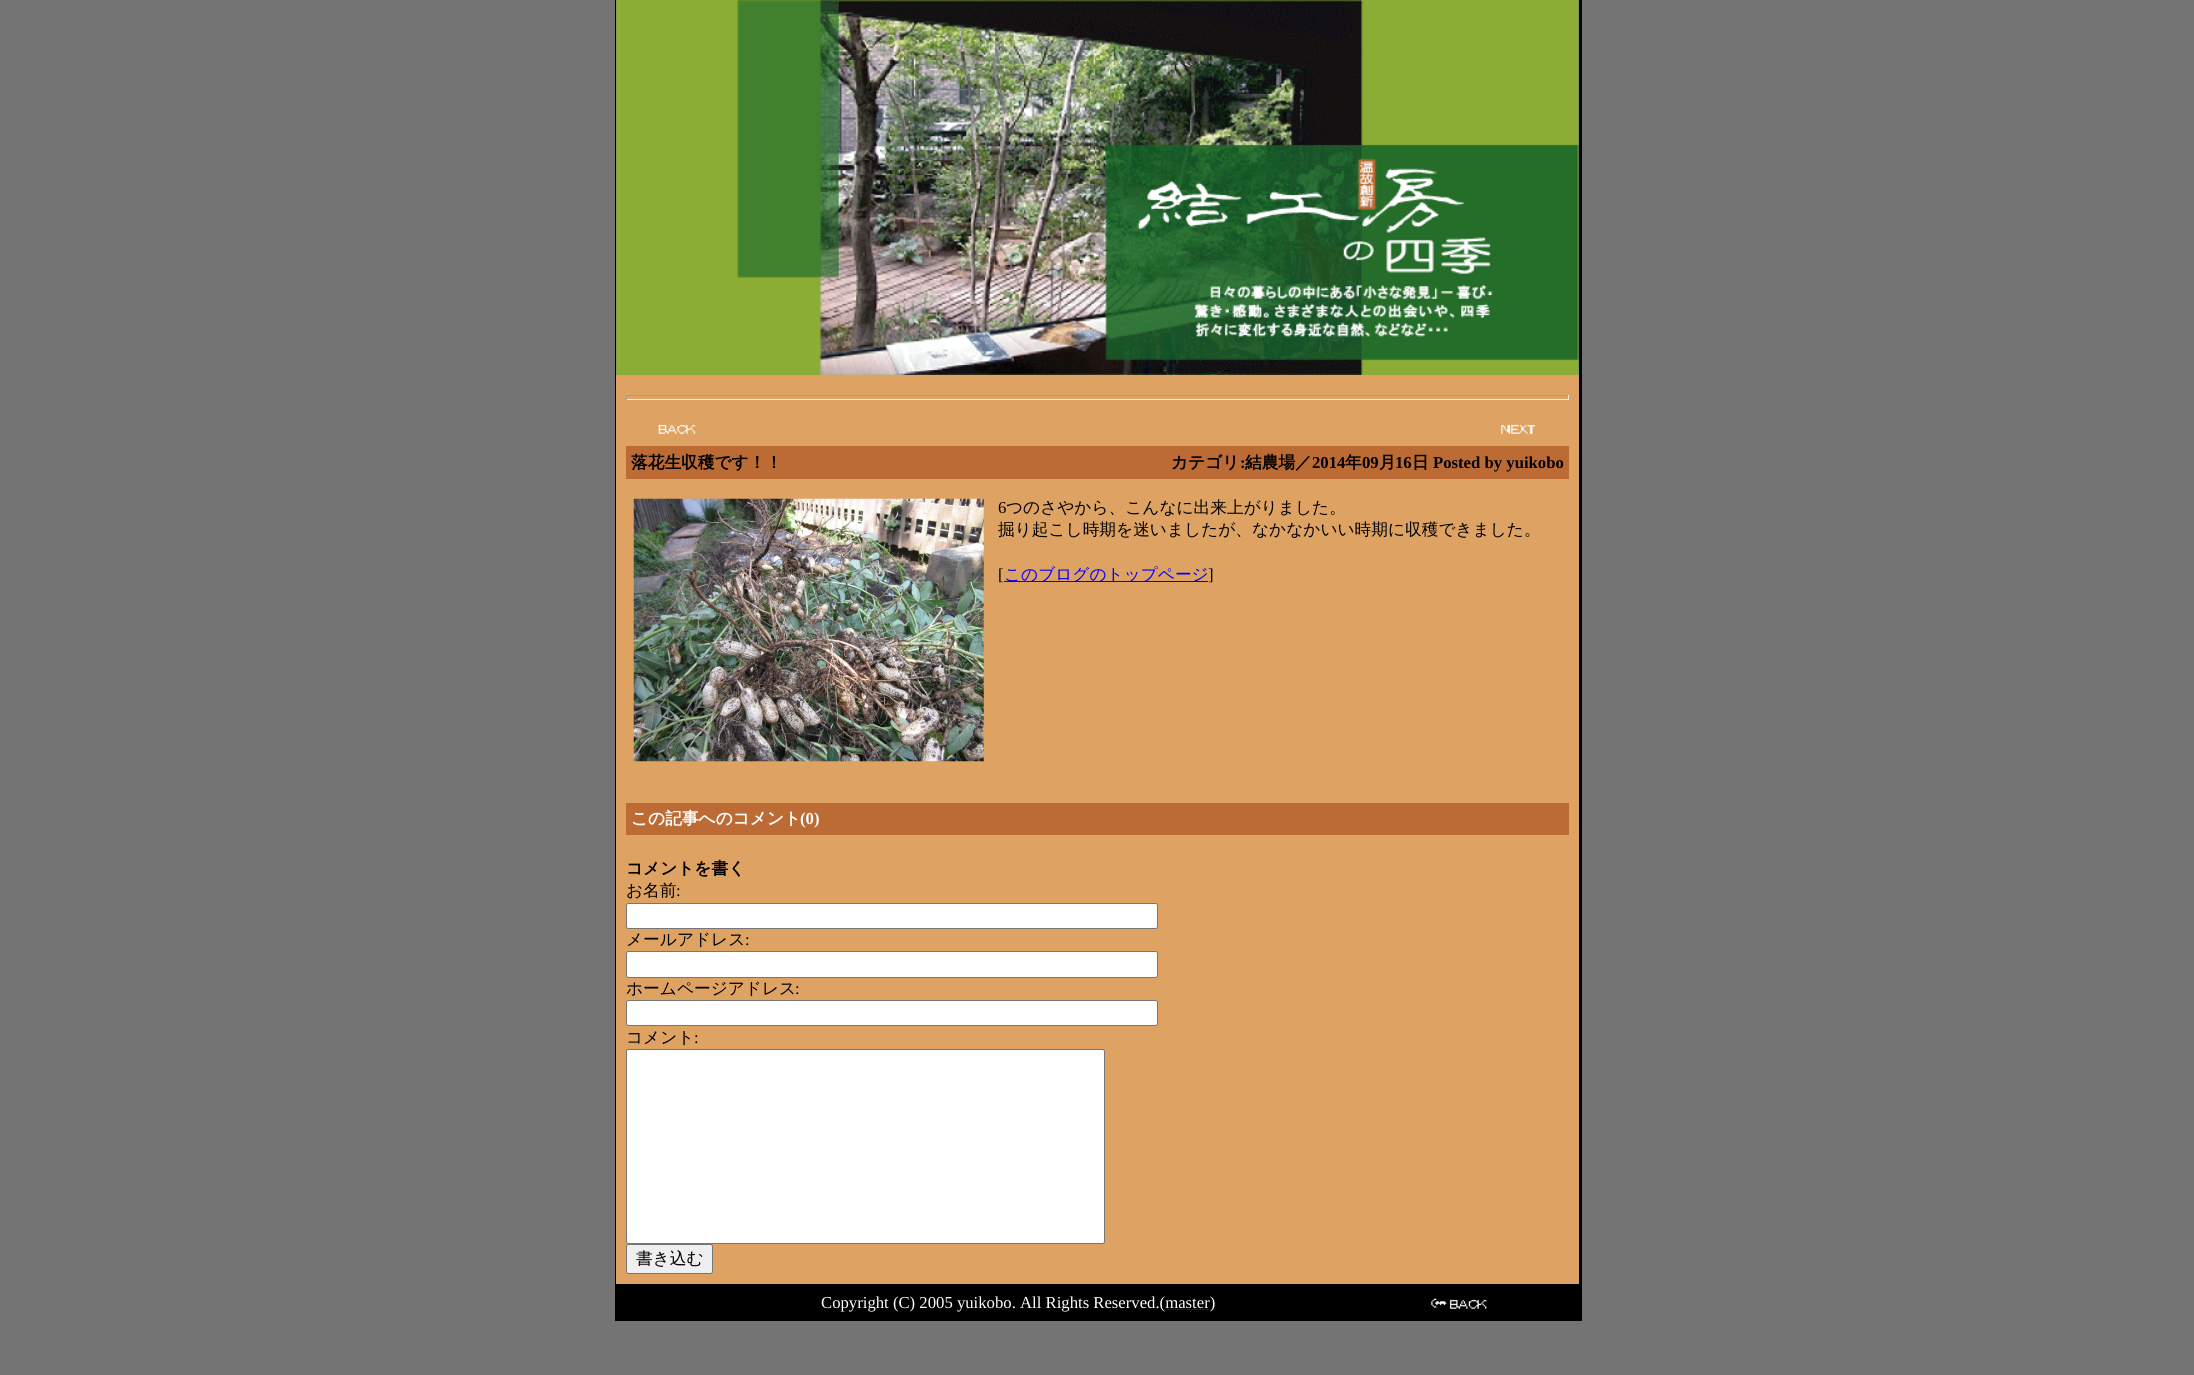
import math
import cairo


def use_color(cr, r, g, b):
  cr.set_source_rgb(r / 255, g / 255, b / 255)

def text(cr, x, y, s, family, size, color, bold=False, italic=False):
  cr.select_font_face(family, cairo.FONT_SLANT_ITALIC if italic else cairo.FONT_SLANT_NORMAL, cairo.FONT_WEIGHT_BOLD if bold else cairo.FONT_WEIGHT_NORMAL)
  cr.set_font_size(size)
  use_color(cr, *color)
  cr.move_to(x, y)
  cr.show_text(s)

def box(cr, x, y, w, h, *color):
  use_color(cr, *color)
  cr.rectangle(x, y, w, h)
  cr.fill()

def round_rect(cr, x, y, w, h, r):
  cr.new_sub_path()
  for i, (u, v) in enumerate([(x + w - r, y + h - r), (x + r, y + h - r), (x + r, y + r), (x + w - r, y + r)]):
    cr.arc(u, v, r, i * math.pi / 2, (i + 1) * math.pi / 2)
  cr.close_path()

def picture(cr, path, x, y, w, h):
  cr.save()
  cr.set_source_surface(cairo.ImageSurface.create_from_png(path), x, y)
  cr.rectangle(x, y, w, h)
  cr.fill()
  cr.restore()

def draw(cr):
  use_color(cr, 116, 116, 116)
  cr.paint()
  box(cr, 1579, 0, 3, 1284, 0, 0, 0)
  box(cr, 615, 0, 1, 1284, 0, 0, 0)
  picture(cr, "img_01.png", 616, 0, 963, 375)
  box(cr, 616, 375, 963, 909, 222, 162, 99)
  box(cr, 626, 395, 943, 1, 159, 159, 159)
  box(cr, 1568, 395, 1, 5, 238, 238, 238)
  box(cr, 626, 399, 943, 1, 238, 238, 238)
  box(cr, 626, 395, 1, 5, 159, 159, 159)
  picture(cr, "img_02.png", 658, 424, 38, 10)
  picture(cr, "img_03.png", 1501, 424, 35, 10)
  box(cr, 626, 446, 943, 33, 189, 107, 52)
  picture(cr, "img_04.png", 633, 498, 351, 264)
  box(cr, 1004, 581, 204, 1, 0, 0, 255)
  box(cr, 626, 803, 943, 32, 189, 107, 52)
  use_color(cr, 255, 255, 255)
  round_rect(cr, 626.5, 903.5, 531, 25, 2)
  cr.fill_preserve()
  use_color(cr, 118, 118, 118)
  cr.set_line_width(1)
  cr.stroke()
  use_color(cr, 255, 255, 255)
  round_rect(cr, 626.5, 951.5, 531, 26, 2)
  cr.fill_preserve()
  use_color(cr, 118, 118, 118)
  cr.stroke()
  use_color(cr, 255, 255, 255)
  round_rect(cr, 626.5, 1000.5, 531, 25, 2)
  cr.fill_preserve()
  use_color(cr, 118, 118, 118)
  cr.stroke()
  use_color(cr, 255, 255, 255)
  round_rect(cr, 626.5, 1049.5, 478, 194, 2)
  cr.fill_preserve()
  use_color(cr, 118, 118, 118)
  cr.stroke()
  use_color(cr, 239, 239, 239)
  round_rect(cr, 626.5, 1244.5, 86, 29, 2)
  cr.fill_preserve()
  use_color(cr, 118, 118, 118)
  cr.stroke()
  box(cr, 615, 1284, 967, 37, 0, 0, 0)
  picture(cr, "img_05.png", 1431, 1298, 56, 11)
  text(cr, 631, 468, "落花生収穫です！！", "WenQuanYi Zen Hei", 16.7, (0, 0, 0), bold=True)
  text(cr, 1171, 468, "カテゴリ", "WenQuanYi Zen Hei", 16.7, (0, 0, 0), bold=True)
  text(cr, 1240, 468, ":", "Liberation Serif", 16.7, (0, 0, 0), bold=True)
  text(cr, 1245, 468, "結農場／", "WenQuanYi Zen Hei", 16.7, (0, 0, 0), bold=True)
  text(cr, 1312, 468, "2014", "Liberation Serif", 16.7, (0, 0, 0), bold=True)
  text(cr, 1345, 468, "年", "WenQuanYi Zen Hei", 16.7, (0, 0, 0), bold=True)
  text(cr, 1362, 468, "09", "Liberation Serif", 16.7, (0, 0, 0), bold=True)
  text(cr, 1379, 468, "月", "WenQuanYi Zen Hei", 16.7, (0, 0, 0), bold=True)
  text(cr, 1395, 468, "16", "Liberation Serif", 16.7, (0, 0, 0), bold=True)
  text(cr, 1412, 468, "日", "WenQuanYi Zen Hei", 16.7, (0, 0, 0), bold=True)
  text(cr, 1433, 468, "Posted by yuikobo", "Liberation Serif", 16.7, (0, 0, 0), bold=True)
  text(cr, 998, 513, "6", "Liberation Serif", 16.7, (0, 0, 0))
  text(cr, 1006, 513, "つのさやから、こんなに出来上がりました。", "WenQuanYi Zen Hei Medium", 16.7, (0, 0, 0))
  text(cr, 998, 535, "掘り起こし時期を迷いましたが、なかなかいい時期に収穫できました。", "WenQuanYi Zen Hei Medium", 16.7, (0, 0, 0))
  text(cr, 998, 580, "[", "Liberation Serif", 16.7, (0, 0, 0))
  text(cr, 1004, 580, "このブログのトップページ", "WenQuanYi Zen Hei Medium", 16.7, (0, 0, 255))
  text(cr, 1208, 580, "]", "Liberation Serif", 16.7, (0, 0, 0))
  text(cr, 631, 824, "この記事へのコメント", "WenQuanYi Zen Hei", 16.7, (255, 255, 255), bold=True)
  text(cr, 800, 824, "(0)", "Liberation Serif", 16.7, (255, 255, 255), bold=True)
  text(cr, 626, 874, "コメントを書く", "WenQuanYi Zen Hei", 16.7, (0, 0, 0), bold=True)
  text(cr, 626, 896, "お名前", "WenQuanYi Zen Hei Medium", 16.7, (0, 0, 0))
  text(cr, 676, 896, ":", "Liberation Serif", 16.7, (0, 0, 0))
  text(cr, 626, 945, "メールアドレス", "WenQuanYi Zen Hei Medium", 16.7, (0, 0, 0))
  text(cr, 745, 945, ":", "Liberation Serif", 16.7, (0, 0, 0))
  text(cr, 626, 994, "ホームページアドレス", "WenQuanYi Zen Hei Medium", 16.7, (0, 0, 0))
  text(cr, 795, 994, ":", "Liberation Serif", 16.7, (0, 0, 0))
  text(cr, 626, 1043, "コメント", "WenQuanYi Zen Hei Medium", 16.7, (0, 0, 0))
  text(cr, 694, 1043, ":", "Liberation Serif", 16.7, (0, 0, 0))
  text(cr, 636, 1264, "書き込む", "WenQuanYi Zen Hei Medium", 16.7, (0, 0, 0))
  text(cr, 821, 1308, "Copyright (C) 2005 yuikobo. All Rights Reserved.(master)", "Liberation Serif", 16.7, (255, 255, 255))
  box(cr, 1164, 1309, 45, 1, 0, 0, 255)


surface = cairo.ImageSurface(cairo.FORMAT_RGB24, 2194, 1375)
cr = cairo.Context(surface)
options = cairo.FontOptions()
options.set_hint_metrics(cairo.HINT_METRICS_OFF)
options.set_hint_style(cairo.HINT_STYLE_NONE)
cr.set_font_options(options)
cr.set_miter_limit(4)
draw(cr)
surface.write_to_png("out.png")
